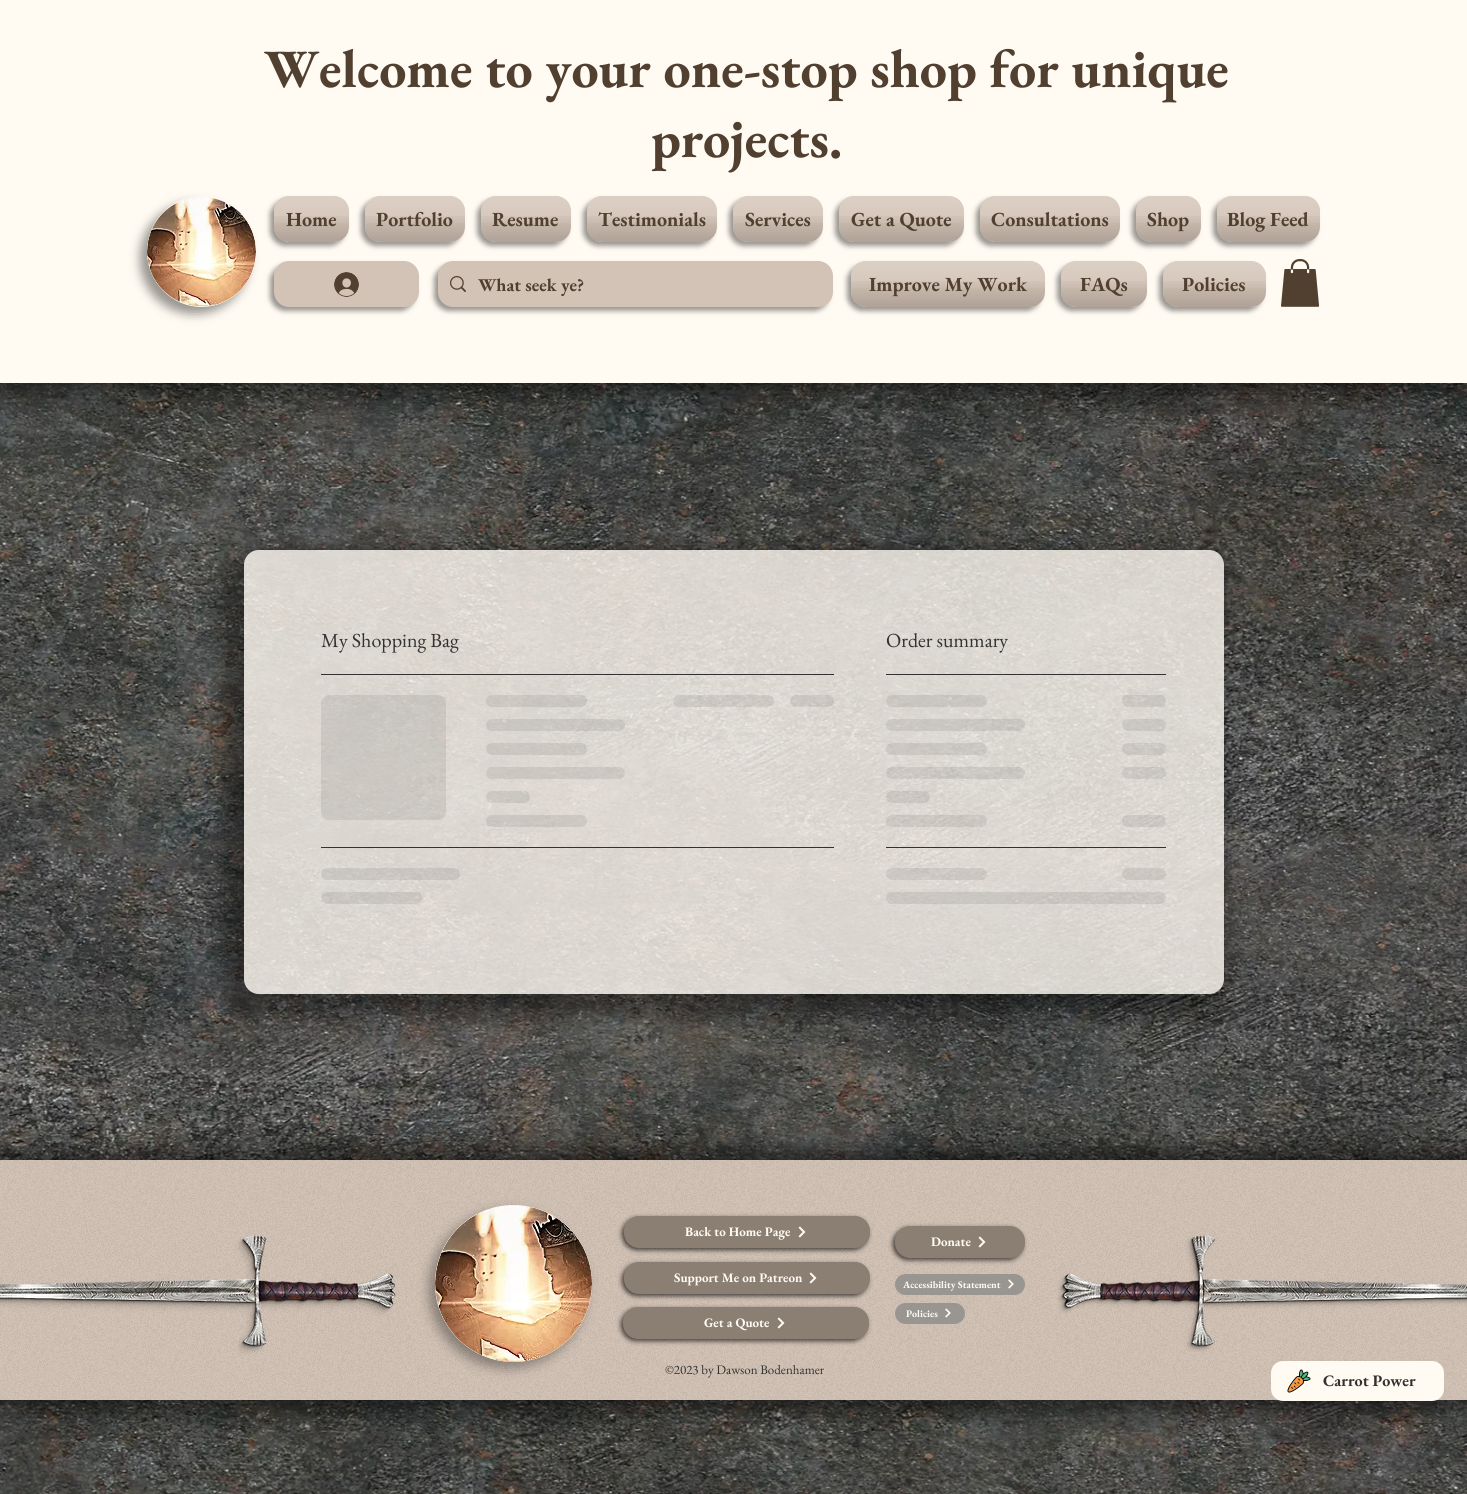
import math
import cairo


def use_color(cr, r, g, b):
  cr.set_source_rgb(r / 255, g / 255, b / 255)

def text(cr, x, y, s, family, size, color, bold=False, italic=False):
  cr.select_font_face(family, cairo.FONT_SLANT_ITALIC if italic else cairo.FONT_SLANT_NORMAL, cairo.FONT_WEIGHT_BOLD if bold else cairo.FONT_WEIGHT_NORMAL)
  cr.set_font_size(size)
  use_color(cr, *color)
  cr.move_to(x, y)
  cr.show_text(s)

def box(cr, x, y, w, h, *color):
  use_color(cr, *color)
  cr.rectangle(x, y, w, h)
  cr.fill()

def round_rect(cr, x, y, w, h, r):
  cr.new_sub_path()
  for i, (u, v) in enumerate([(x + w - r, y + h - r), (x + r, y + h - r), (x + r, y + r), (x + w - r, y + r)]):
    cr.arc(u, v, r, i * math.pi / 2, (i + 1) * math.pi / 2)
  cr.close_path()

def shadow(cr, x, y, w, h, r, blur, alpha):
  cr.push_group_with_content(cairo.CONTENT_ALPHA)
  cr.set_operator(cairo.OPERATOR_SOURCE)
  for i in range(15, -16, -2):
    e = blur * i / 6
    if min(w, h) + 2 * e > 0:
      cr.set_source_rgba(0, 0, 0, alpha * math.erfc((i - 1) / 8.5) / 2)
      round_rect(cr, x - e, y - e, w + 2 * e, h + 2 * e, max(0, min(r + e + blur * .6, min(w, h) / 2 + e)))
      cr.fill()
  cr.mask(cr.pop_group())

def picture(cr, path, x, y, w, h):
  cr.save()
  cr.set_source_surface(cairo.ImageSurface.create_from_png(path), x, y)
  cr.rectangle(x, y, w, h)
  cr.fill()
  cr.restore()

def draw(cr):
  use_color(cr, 255, 255, 255)
  cr.paint()
  picture(cr, "img_32.png", 0, 383, 1467, 1111)
  use_color(cr, 0, 0, 0)
  shadow(cr, 0, 10, 1467, 383, 0, 15, 0.6)
  box(cr, 0, 0, 1467, 383, 255, 250, 242)
  use_color(cr, 0, 0, 0)
  shadow(cr, 140, 203, 109, 111, 54.5, 5, 0.4)
  use_color(cr, 255, 250, 242)
  cr.new_path()
  cr.move_to(201.5, 196)
  cr.curve_to(231.5, 196, 256, 221, 256, 251.5)
  cr.curve_to(256, 282, 231.5, 307, 201.5, 307)
  cr.curve_to(171.5, 307, 147, 282, 147, 251.5)
  cr.curve_to(147, 221, 171.5, 196, 201.5, 196)
  cr.close_path()
  cr.fill()
  picture(cr, "img_01.png", 147, 197, 109, 109)
  use_color(cr, 0, 0, 0)
  shadow(cr, 270, 200, 75, 46, 15, 2.5, 0.4)
  use_color(cr, 211, 195, 182)
  round_rect(cr, 274, 196, 75, 46, 15)
  cr.fill()
  picture(cr, "img_02.png", 274, 196, 75, 27)
  picture(cr, "img_03.png", 274, 216, 75, 26)
  use_color(cr, 0, 0, 0)
  shadow(cr, 361, 200, 100, 46, 15, 2.5, 0.4)
  use_color(cr, 211, 195, 182)
  round_rect(cr, 365, 196, 100, 46, 15)
  cr.fill()
  picture(cr, "img_04.png", 365, 196, 100, 27)
  picture(cr, "img_05.png", 365, 216, 100, 26)
  use_color(cr, 0, 0, 0)
  shadow(cr, 477, 200, 90, 46, 15, 2.5, 0.4)
  use_color(cr, 211, 195, 182)
  round_rect(cr, 481, 196, 90, 46, 15)
  cr.fill()
  picture(cr, "img_06.png", 481, 196, 90, 27)
  picture(cr, "img_07.png", 481, 216, 90, 26)
  use_color(cr, 0, 0, 0)
  shadow(cr, 583, 200, 130, 46, 15, 2.5, 0.4)
  use_color(cr, 211, 195, 182)
  round_rect(cr, 587, 196, 130, 46, 15)
  cr.fill()
  picture(cr, "img_08.png", 587, 196, 130, 27)
  picture(cr, "img_09.png", 587, 216, 130, 26)
  use_color(cr, 0, 0, 0)
  shadow(cr, 729, 200, 90, 46, 15, 2.5, 0.4)
  use_color(cr, 211, 195, 182)
  round_rect(cr, 733, 196, 90, 46, 15)
  cr.fill()
  picture(cr, "img_06.png", 733, 196, 90, 27)
  picture(cr, "img_07.png", 733, 216, 90, 26)
  use_color(cr, 0, 0, 0)
  shadow(cr, 835, 200, 125, 46, 15, 2.5, 0.4)
  use_color(cr, 211, 195, 182)
  round_rect(cr, 839, 196, 125, 46, 15)
  cr.fill()
  picture(cr, "img_10.png", 839, 196, 125, 27)
  picture(cr, "img_11.png", 839, 216, 125, 26)
  use_color(cr, 0, 0, 0)
  shadow(cr, 976, 200, 140, 46, 15, 2.5, 0.4)
  use_color(cr, 211, 195, 182)
  round_rect(cr, 980, 196, 140, 46, 15)
  cr.fill()
  picture(cr, "img_12.png", 980, 196, 140, 27)
  picture(cr, "img_13.png", 980, 216, 140, 26)
  use_color(cr, 0, 0, 0)
  shadow(cr, 1132, 200, 65, 46, 15, 2.5, 0.4)
  use_color(cr, 211, 195, 182)
  round_rect(cr, 1136, 196, 65, 46, 15)
  cr.fill()
  picture(cr, "img_14.png", 1136, 196, 65, 27)
  picture(cr, "img_15.png", 1136, 216, 65, 26)
  use_color(cr, 0, 0, 0)
  shadow(cr, 1213, 200, 103, 46, 15, 2.5, 0.4)
  use_color(cr, 211, 195, 182)
  round_rect(cr, 1217, 196, 103, 46, 15)
  cr.fill()
  picture(cr, "img_16.png", 1217, 196, 103, 27)
  picture(cr, "img_17.png", 1217, 216, 103, 26)
  use_color(cr, 0, 0, 0)
  shadow(cr, 270, 265, 145, 46, 15, 2.5, 0.4)
  use_color(cr, 211, 195, 182)
  round_rect(cr, 274, 261, 145, 46, 15)
  cr.fill()
  picture(cr, "img_18.png", 334, 272, 25, 25)
  use_color(cr, 0, 0, 0)
  shadow(cr, 434, 265, 395, 46, 15, 2.5, 0.4)
  use_color(cr, 211, 195, 182)
  round_rect(cr, 438, 261, 395, 46, 15)
  cr.fill()
  picture(cr, "img_19.png", 450, 276, 16, 16)
  use_color(cr, 0, 0, 0)
  shadow(cr, 847, 265, 194, 46, 15, 2.5, 0.4)
  use_color(cr, 211, 195, 182)
  round_rect(cr, 851, 261, 194, 46, 15)
  cr.fill()
  picture(cr, "img_20.png", 851, 261, 194, 27)
  picture(cr, "img_21.png", 851, 281, 194, 26)
  use_color(cr, 0, 0, 0)
  shadow(cr, 1057, 265, 86, 46, 15, 2.5, 0.4)
  use_color(cr, 211, 195, 182)
  round_rect(cr, 1061, 261, 86, 46, 15)
  cr.fill()
  picture(cr, "img_22.png", 1061, 261, 86, 27)
  picture(cr, "img_23.png", 1061, 281, 86, 26)
  use_color(cr, 0, 0, 0)
  shadow(cr, 1159, 265, 103, 46, 15, 2.5, 0.4)
  use_color(cr, 211, 195, 182)
  round_rect(cr, 1163, 261, 103, 46, 15)
  cr.fill()
  picture(cr, "img_16.png", 1163, 261, 103, 27)
  picture(cr, "img_17.png", 1163, 281, 103, 26)
  picture(cr, "img_24.png", 1281, 259, 39, 48)
  cr.save()
  cr.set_fill_rule(cairo.FILL_RULE_EVEN_ODD)
  cr.new_path()
  cr.move_to(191, 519)
  cr.line_to(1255, 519)
  cr.line_to(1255, 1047)
  cr.line_to(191, 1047)
  cr.close_path()
  cr.move_to(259, 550)
  cr.line_to(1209, 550)
  cr.curve_to(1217.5, 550, 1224, 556.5, 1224, 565)
  cr.line_to(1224, 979)
  cr.curve_to(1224, 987.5, 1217.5, 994, 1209, 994)
  cr.line_to(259, 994)
  cr.curve_to(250.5, 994, 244, 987.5, 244, 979)
  cr.line_to(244, 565)
  cr.curve_to(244, 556.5, 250.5, 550, 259, 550)
  cr.close_path()
  cr.clip()
  use_color(cr, 0, 0, 0)
  shadow(cr, 222, 550, 1002, 466, 26, 10, 0.4)
  cr.restore()
  cr.set_source_rgba(1, 0.98, 0.949, 0.8)
  round_rect(cr, 244, 550, 980, 444, 15)
  cr.fill()
  box(cr, 321, 674, 513, 1, 51, 50, 48)
  gradient = cairo.LinearGradient(321, 758, 821, 758)
  gradient.add_color_stop_rgba(0.25, 0.2, 0.196, 0.188, 0.1)
  gradient.add_color_stop_rgba(0.37, 0.2, 0.196, 0.188, 0.2)
  gradient.add_color_stop_rgba(0.63, 0.2, 0.196, 0.188, 0.1)
  cr.set_source(gradient)
  round_rect(cr, 321, 695, 125, 125, 8)
  cr.fill()
  gradient = cairo.LinearGradient(486, 701, 890, 701)
  gradient.add_color_stop_rgba(0.25, 0.2, 0.196, 0.188, 0.1)
  gradient.add_color_stop_rgba(0.37, 0.2, 0.196, 0.188, 0.2)
  gradient.add_color_stop_rgba(0.63, 0.2, 0.196, 0.188, 0.1)
  cr.set_source(gradient)
  round_rect(cr, 486, 695, 101, 12, 6)
  cr.fill()
  gradient = cairo.LinearGradient(486, 725, 1042, 725)
  gradient.add_color_stop_rgba(0.25, 0.2, 0.196, 0.188, 0.1)
  gradient.add_color_stop_rgba(0.37, 0.2, 0.196, 0.188, 0.2)
  gradient.add_color_stop_rgba(0.63, 0.2, 0.196, 0.188, 0.1)
  cr.set_source(gradient)
  round_rect(cr, 486, 719, 139, 12, 6)
  cr.fill()
  gradient = cairo.LinearGradient(486, 749, 890, 749)
  gradient.add_color_stop_rgba(0.25, 0.2, 0.196, 0.188, 0.1)
  gradient.add_color_stop_rgba(0.37, 0.2, 0.196, 0.188, 0.2)
  gradient.add_color_stop_rgba(0.63, 0.2, 0.196, 0.188, 0.1)
  cr.set_source(gradient)
  round_rect(cr, 486, 743, 101, 12, 6)
  cr.fill()
  gradient = cairo.LinearGradient(486, 773, 1042, 773)
  gradient.add_color_stop_rgba(0.25, 0.2, 0.196, 0.188, 0.1)
  gradient.add_color_stop_rgba(0.37, 0.2, 0.196, 0.188, 0.2)
  gradient.add_color_stop_rgba(0.63, 0.2, 0.196, 0.188, 0.1)
  cr.set_source(gradient)
  round_rect(cr, 486, 767, 139, 12, 6)
  cr.fill()
  gradient = cairo.LinearGradient(486, 797, 662, 797)
  gradient.add_color_stop_rgba(0.25, 0.2, 0.196, 0.188, 0.1)
  gradient.add_color_stop_rgba(0.37, 0.2, 0.196, 0.188, 0.2)
  gradient.add_color_stop_rgba(0.63, 0.2, 0.196, 0.188, 0.1)
  cr.set_source(gradient)
  round_rect(cr, 486, 791, 44, 12, 6)
  cr.fill()
  gradient = cairo.LinearGradient(486, 821, 890, 821)
  gradient.add_color_stop_rgba(0.25, 0.2, 0.196, 0.188, 0.1)
  gradient.add_color_stop_rgba(0.37, 0.2, 0.196, 0.188, 0.2)
  gradient.add_color_stop_rgba(0.63, 0.2, 0.196, 0.188, 0.1)
  cr.set_source(gradient)
  round_rect(cr, 486, 815, 101, 12, 6)
  cr.fill()
  gradient = cairo.LinearGradient(673, 701, 1077, 701)
  gradient.add_color_stop_rgba(0.25, 0.2, 0.196, 0.188, 0.1)
  gradient.add_color_stop_rgba(0.37, 0.2, 0.196, 0.188, 0.2)
  gradient.add_color_stop_rgba(0.63, 0.2, 0.196, 0.188, 0.1)
  cr.set_source(gradient)
  round_rect(cr, 673, 695, 101, 12, 6)
  cr.fill()
  gradient = cairo.LinearGradient(790, 701, 966, 701)
  gradient.add_color_stop_rgba(0.25, 0.2, 0.196, 0.188, 0.1)
  gradient.add_color_stop_rgba(0.37, 0.2, 0.196, 0.188, 0.2)
  gradient.add_color_stop_rgba(0.63, 0.2, 0.196, 0.188, 0.1)
  cr.set_source(gradient)
  round_rect(cr, 790, 695, 44, 12, 6)
  cr.fill()
  box(cr, 321, 847, 513, 1, 51, 50, 48)
  gradient = cairo.LinearGradient(321, 874, 877, 874)
  gradient.add_color_stop_rgba(0.25, 0.2, 0.196, 0.188, 0.1)
  gradient.add_color_stop_rgba(0.37, 0.2, 0.196, 0.188, 0.2)
  gradient.add_color_stop_rgba(0.63, 0.2, 0.196, 0.188, 0.1)
  cr.set_source(gradient)
  round_rect(cr, 321, 868, 139, 12, 6)
  cr.fill()
  gradient = cairo.LinearGradient(321, 898, 725, 898)
  gradient.add_color_stop_rgba(0.25, 0.2, 0.196, 0.188, 0.1)
  gradient.add_color_stop_rgba(0.37, 0.2, 0.196, 0.188, 0.2)
  gradient.add_color_stop_rgba(0.63, 0.2, 0.196, 0.188, 0.1)
  cr.set_source(gradient)
  round_rect(cr, 321, 892, 101, 12, 6)
  cr.fill()
  box(cr, 886, 674, 280, 1, 51, 50, 48)
  gradient = cairo.LinearGradient(886, 701, 1290, 701)
  gradient.add_color_stop_rgba(0.25, 0.2, 0.196, 0.188, 0.1)
  gradient.add_color_stop_rgba(0.37, 0.2, 0.196, 0.188, 0.2)
  gradient.add_color_stop_rgba(0.63, 0.2, 0.196, 0.188, 0.1)
  cr.set_source(gradient)
  round_rect(cr, 886, 695, 101, 12, 6)
  cr.fill()
  gradient = cairo.LinearGradient(1122, 701, 1298, 701)
  gradient.add_color_stop_rgba(0.25, 0.2, 0.196, 0.188, 0.1)
  gradient.add_color_stop_rgba(0.37, 0.2, 0.196, 0.188, 0.2)
  gradient.add_color_stop_rgba(0.63, 0.2, 0.196, 0.188, 0.1)
  cr.set_source(gradient)
  round_rect(cr, 1122, 695, 44, 12, 6)
  cr.fill()
  gradient = cairo.LinearGradient(886, 725, 1442, 725)
  gradient.add_color_stop_rgba(0.25, 0.2, 0.196, 0.188, 0.1)
  gradient.add_color_stop_rgba(0.37, 0.2, 0.196, 0.188, 0.2)
  gradient.add_color_stop_rgba(0.63, 0.2, 0.196, 0.188, 0.1)
  cr.set_source(gradient)
  round_rect(cr, 886, 719, 139, 12, 6)
  cr.fill()
  gradient = cairo.LinearGradient(1122, 725, 1298, 725)
  gradient.add_color_stop_rgba(0.25, 0.2, 0.196, 0.188, 0.1)
  gradient.add_color_stop_rgba(0.37, 0.2, 0.196, 0.188, 0.2)
  gradient.add_color_stop_rgba(0.63, 0.2, 0.196, 0.188, 0.1)
  cr.set_source(gradient)
  round_rect(cr, 1122, 719, 44, 12, 6)
  cr.fill()
  gradient = cairo.LinearGradient(886, 749, 1290, 749)
  gradient.add_color_stop_rgba(0.25, 0.2, 0.196, 0.188, 0.1)
  gradient.add_color_stop_rgba(0.37, 0.2, 0.196, 0.188, 0.2)
  gradient.add_color_stop_rgba(0.63, 0.2, 0.196, 0.188, 0.1)
  cr.set_source(gradient)
  round_rect(cr, 886, 743, 101, 12, 6)
  cr.fill()
  gradient = cairo.LinearGradient(1122, 749, 1298, 749)
  gradient.add_color_stop_rgba(0.25, 0.2, 0.196, 0.188, 0.1)
  gradient.add_color_stop_rgba(0.37, 0.2, 0.196, 0.188, 0.2)
  gradient.add_color_stop_rgba(0.63, 0.2, 0.196, 0.188, 0.1)
  cr.set_source(gradient)
  round_rect(cr, 1122, 743, 44, 12, 6)
  cr.fill()
  gradient = cairo.LinearGradient(886, 773, 1442, 773)
  gradient.add_color_stop_rgba(0.25, 0.2, 0.196, 0.188, 0.1)
  gradient.add_color_stop_rgba(0.37, 0.2, 0.196, 0.188, 0.2)
  gradient.add_color_stop_rgba(0.63, 0.2, 0.196, 0.188, 0.1)
  cr.set_source(gradient)
  round_rect(cr, 886, 767, 139, 12, 6)
  cr.fill()
  gradient = cairo.LinearGradient(1122, 773, 1298, 773)
  gradient.add_color_stop_rgba(0.25, 0.2, 0.196, 0.188, 0.1)
  gradient.add_color_stop_rgba(0.37, 0.2, 0.196, 0.188, 0.2)
  gradient.add_color_stop_rgba(0.63, 0.2, 0.196, 0.188, 0.1)
  cr.set_source(gradient)
  round_rect(cr, 1122, 767, 44, 12, 6)
  cr.fill()
  gradient = cairo.LinearGradient(886, 797, 1062, 797)
  gradient.add_color_stop_rgba(0.25, 0.2, 0.196, 0.188, 0.1)
  gradient.add_color_stop_rgba(0.37, 0.2, 0.196, 0.188, 0.2)
  gradient.add_color_stop_rgba(0.63, 0.2, 0.196, 0.188, 0.1)
  cr.set_source(gradient)
  round_rect(cr, 886, 791, 44, 12, 6)
  cr.fill()
  gradient = cairo.LinearGradient(886, 821, 1290, 821)
  gradient.add_color_stop_rgba(0.25, 0.2, 0.196, 0.188, 0.1)
  gradient.add_color_stop_rgba(0.37, 0.2, 0.196, 0.188, 0.2)
  gradient.add_color_stop_rgba(0.63, 0.2, 0.196, 0.188, 0.1)
  cr.set_source(gradient)
  round_rect(cr, 886, 815, 101, 12, 6)
  cr.fill()
  gradient = cairo.LinearGradient(1122, 821, 1298, 821)
  gradient.add_color_stop_rgba(0.25, 0.2, 0.196, 0.188, 0.1)
  gradient.add_color_stop_rgba(0.37, 0.2, 0.196, 0.188, 0.2)
  gradient.add_color_stop_rgba(0.63, 0.2, 0.196, 0.188, 0.1)
  cr.set_source(gradient)
  round_rect(cr, 1122, 815, 44, 12, 6)
  cr.fill()
  box(cr, 886, 847, 280, 1, 51, 50, 48)
  gradient = cairo.LinearGradient(886, 874, 1290, 874)
  gradient.add_color_stop_rgba(0.25, 0.2, 0.196, 0.188, 0.1)
  gradient.add_color_stop_rgba(0.37, 0.2, 0.196, 0.188, 0.2)
  gradient.add_color_stop_rgba(0.63, 0.2, 0.196, 0.188, 0.1)
  cr.set_source(gradient)
  round_rect(cr, 886, 868, 101, 12, 6)
  cr.fill()
  gradient = cairo.LinearGradient(1122, 874, 1298, 874)
  gradient.add_color_stop_rgba(0.25, 0.2, 0.196, 0.188, 0.1)
  gradient.add_color_stop_rgba(0.37, 0.2, 0.196, 0.188, 0.2)
  gradient.add_color_stop_rgba(0.63, 0.2, 0.196, 0.188, 0.1)
  cr.set_source(gradient)
  round_rect(cr, 1122, 868, 44, 12, 6)
  cr.fill()
  gradient = cairo.LinearGradient(886, 898, 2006, 898)
  gradient.add_color_stop_rgba(0.25, 0.2, 0.196, 0.188, 0.1)
  gradient.add_color_stop_rgba(0.37, 0.2, 0.196, 0.188, 0.2)
  gradient.add_color_stop_rgba(0.63, 0.2, 0.196, 0.188, 0.1)
  cr.set_source(gradient)
  round_rect(cr, 886, 892, 280, 12, 6)
  cr.fill()
  use_color(cr, 0, 0, 0)
  shadow(cr, -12, 1148, 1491, 264, 0, 12.5, 0.55)
  box(cr, 0, 1160, 1467, 240, 211, 195, 182)
  picture(cr, "img_25.png", 0, 1160, 1467, 240)
  use_color(cr, 0, 0, 0)
  shadow(cr, 429, 1211, 157, 157, 78.5, 6, 0.35)
  use_color(cr, 255, 250, 242)
  cr.arc(513.5, 1283.5, 78.5, 0, 2 * math.pi)
  cr.fill()
  picture(cr, "img_26.png", 435, 1205, 157, 157)
  use_color(cr, 0, 0, 0)
  shadow(cr, 622, 1218, 246, 32, 15, 2.5, 0.7)
  use_color(cr, 139, 126, 115)
  round_rect(cr, 624, 1216, 246, 32, 15)
  cr.fill()
  picture(cr, "img_27.png", 798, 1226, 8, 12)
  picture(cr, "img_28.png", 0, 1235, 396, 120)
  use_color(cr, 0, 0, 0)
  shadow(cr, 893, 1228, 130, 32, 15, 2.5, 0.7)
  use_color(cr, 139, 126, 115)
  round_rect(cr, 895, 1226, 130, 32, 15)
  cr.fill()
  picture(cr, "img_27.png", 978, 1236, 8, 12)
  picture(cr, "img_29.png", 1057, 1235, 410, 117)
  use_color(cr, 0, 0, 0)
  shadow(cr, 622, 1264, 246, 32, 15, 2.5, 0.7)
  use_color(cr, 139, 126, 115)
  round_rect(cr, 624, 1262, 246, 32, 15)
  cr.fill()
  picture(cr, "img_27.png", 809, 1272, 8, 12)
  use_color(cr, 153, 150, 145)
  round_rect(cr, 895, 1274, 130, 21, 10.5)
  cr.fill()
  picture(cr, "img_30.png", 1008, 1279, 6, 10)
  round_rect(cr, 895, 1303, 70, 21, 10.5)
  cr.fill()
  picture(cr, "img_30.png", 945, 1308, 6, 10)
  use_color(cr, 0, 0, 0)
  shadow(cr, 621, 1309, 246, 32, 15, 2.5, 0.7)
  use_color(cr, 139, 126, 115)
  round_rect(cr, 623, 1307, 246, 32, 15)
  cr.fill()
  picture(cr, "img_27.png", 777, 1317, 8, 12)
  use_color(cr, 255, 250, 242)
  round_rect(cr, 1271, 1361, 173, 40, 12)
  cr.fill()
  picture(cr, "img_31.png", 1287, 1369, 24, 24)
  text(cr, 264, 87, "Welcome to your one-stop shop for unique", "EB Garamond", 54, (81, 63, 48), bold=True)
  text(cr, 651, 157, "projects.", "EB Garamond", 54, (81, 63, 48), bold=True)
  text(cr, 286, 226, "Home", "EB Garamond", 20, (81, 63, 48), bold=True)
  text(cr, 376, 226, "Portfolio", "EB Garamond", 20, (81, 63, 48), bold=True)
  text(cr, 492, 226, "Resume", "EB Garamond", 20, (81, 63, 48), bold=True)
  text(cr, 598, 226, "Testimonials", "EB Garamond", 20, (81, 63, 48), bold=True)
  text(cr, 745, 226, "Services", "EB Garamond", 20, (81, 63, 48), bold=True)
  text(cr, 851, 226, "Get a Quote", "EB Garamond", 20, (81, 63, 48), bold=True)
  text(cr, 991, 226, "Consultations", "EB Garamond", 20, (81, 63, 48), bold=True)
  text(cr, 1147, 226, "Shop", "EB Garamond", 20, (81, 63, 48), bold=True)
  text(cr, 1227, 226, "Blog Feed", "EB Garamond", 20, (81, 63, 48), bold=True)
  text(cr, 478, 291, "What seek ye?", "EB Garamond", 18, (81, 63, 48), bold=True)
  text(cr, 869, 291, "Improve My Work", "EB Garamond", 20, (81, 63, 48), bold=True)
  text(cr, 1080, 291, "FAQs", "EB Garamond", 20, (81, 63, 48), bold=True)
  text(cr, 1182, 291, "Policies", "EB Garamond", 20, (81, 63, 48), bold=True)
  text(cr, 321, 647, "My Shopping Bag", "EB Garamond", 20, (51, 50, 48))
  text(cr, 886, 647, "Order summary", "EB Garamond", 20, (51, 50, 48))
  text(cr, 685, 1236, "Back to Home Page", "EB Garamond", 13, (255, 250, 242), bold=True)
  text(cr, 931, 1246, "Donate", "EB Garamond", 13, (255, 250, 242), bold=True)
  text(cr, 674, 1282, "Support Me on Patreon", "EB Garamond", 13, (255, 250, 242), bold=True)
  text(cr, 903, 1288, "Accessibility Statement", "EB Garamond", 10, (255, 250, 242), bold=True)
  text(cr, 906, 1317, "Policies", "EB Garamond", 10, (255, 250, 242), bold=True)
  text(cr, 704, 1327, "Get a Quote", "EB Garamond", 13, (255, 250, 242), bold=True)
  text(cr, 665, 1374, "©2023 by Dawson Bodenhamer", "EB Garamond", 13, (51, 50, 48))
  text(cr, 1323, 1386, "Carrot Power", "EB Garamond", 16, (51, 50, 48), bold=True)


surface = cairo.ImageSurface(cairo.FORMAT_RGB24, 1467, 1494)
cr = cairo.Context(surface)
options = cairo.FontOptions()
options.set_hint_metrics(cairo.HINT_METRICS_OFF)
options.set_hint_style(cairo.HINT_STYLE_NONE)
cr.set_font_options(options)
cr.set_miter_limit(4)
draw(cr)
surface.write_to_png("out.png")
